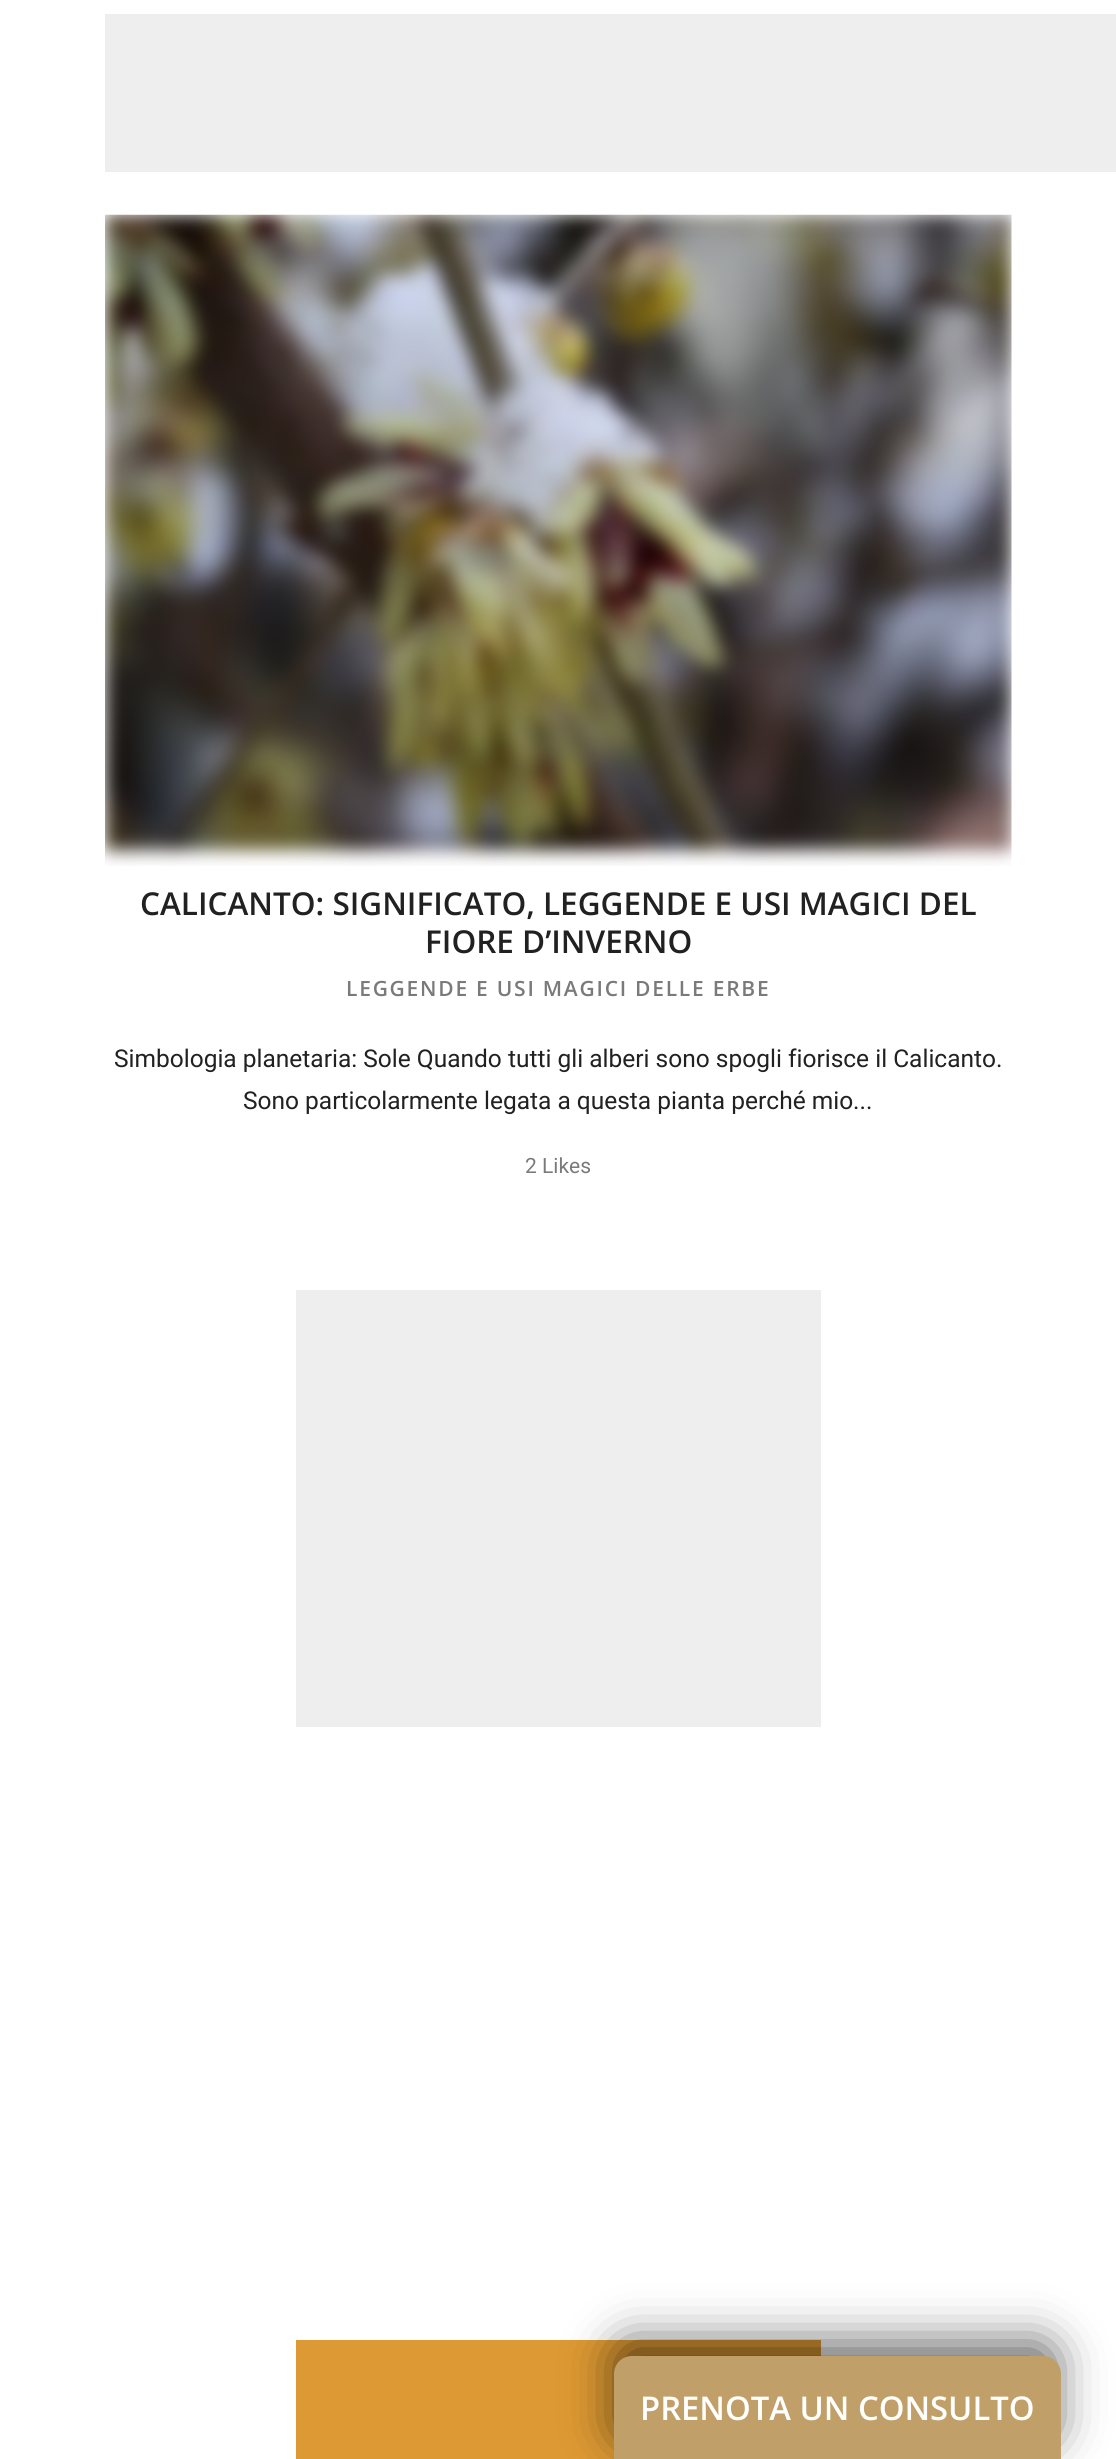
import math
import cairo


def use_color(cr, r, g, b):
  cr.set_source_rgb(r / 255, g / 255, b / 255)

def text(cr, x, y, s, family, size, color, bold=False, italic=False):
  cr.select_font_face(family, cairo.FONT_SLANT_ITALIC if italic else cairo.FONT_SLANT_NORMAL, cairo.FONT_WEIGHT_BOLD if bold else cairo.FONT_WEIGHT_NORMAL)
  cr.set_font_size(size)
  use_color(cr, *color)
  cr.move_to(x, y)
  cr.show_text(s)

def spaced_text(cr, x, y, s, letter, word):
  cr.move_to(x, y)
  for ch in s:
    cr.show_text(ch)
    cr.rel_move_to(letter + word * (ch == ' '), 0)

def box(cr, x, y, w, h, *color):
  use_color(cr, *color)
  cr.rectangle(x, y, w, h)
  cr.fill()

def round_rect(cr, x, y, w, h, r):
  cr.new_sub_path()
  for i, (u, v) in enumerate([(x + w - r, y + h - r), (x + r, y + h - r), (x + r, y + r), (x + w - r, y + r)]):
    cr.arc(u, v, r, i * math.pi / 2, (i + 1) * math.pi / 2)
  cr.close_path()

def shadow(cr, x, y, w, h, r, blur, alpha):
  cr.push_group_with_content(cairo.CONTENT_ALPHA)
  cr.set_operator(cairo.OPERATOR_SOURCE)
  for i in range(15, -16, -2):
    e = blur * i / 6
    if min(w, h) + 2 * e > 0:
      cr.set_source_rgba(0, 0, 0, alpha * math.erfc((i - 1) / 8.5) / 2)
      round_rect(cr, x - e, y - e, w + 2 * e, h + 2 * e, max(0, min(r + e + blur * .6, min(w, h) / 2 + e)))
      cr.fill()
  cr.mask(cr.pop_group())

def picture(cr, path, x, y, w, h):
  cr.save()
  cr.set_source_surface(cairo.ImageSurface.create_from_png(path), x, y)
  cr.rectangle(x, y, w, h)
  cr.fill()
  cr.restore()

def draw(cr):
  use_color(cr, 255, 255, 255)
  cr.paint()
  box(cr, 105, 14, 1011, 158, 238, 238, 238)
  picture(cr, "img_01.png", 105, 214, 907, 652)
  box(cr, 296, 1290, 525, 437, 238, 238, 238)
  box(cr, 296, 2340, 525, 119, 221, 153, 51)
  use_color(cr, 0, 0, 0)
  shadow(cr, 616, 2343, 439, 98, 14, 24.5, 0.63)
  cr.new_path()
  cr.move_to(632, 2357)
  cr.line_to(1043, 2357)
  cr.curve_to(1052.5, 2357, 1060, 2364.5, 1060, 2374)
  cr.line_to(1060, 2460)
  cr.line_to(615, 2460)
  cr.line_to(615, 2374)
  cr.curve_to(615, 2364.5, 622.5, 2357, 632, 2357)
  cr.close_path()
  use_color(cr, 192, 159, 104)
  cr.stroke()
  cr.new_path()
  cr.move_to(630, 2357)
  cr.line_to(1045, 2357)
  cr.curve_to(1052.5, 2357, 1059, 2363.5, 1059, 2371)
  cr.line_to(1059, 2459)
  cr.line_to(616, 2459)
  cr.line_to(616, 2371)
  cr.curve_to(616, 2363.5, 622.5, 2357, 630, 2357)
  cr.close_path()
  cr.fill()
  text(cr, 140, 915, "CALICANTO: SIGNIFICATO, LEGGENDE E USI MAGICI DEL", "Open Sans SemiBold", 31.5, (33, 33, 33))
  text(cr, 425, 953, "FIORE D’INVERNO", "Open Sans SemiBold", 31.5, (33, 33, 33))
  cr.set_font_size(21)
  use_color(cr, 122, 122, 122)
  spaced_text(cr, 346, 996, "LEGGENDE E USI MAGICI DELLE ERBE", 1.75, 0)
  text(cr, 114, 1067, "Simbologia planetaria: Sole Quando tutti gli alberi sono spogli fiorisce il Calicanto.", "Roboto", 24.5, (33, 33, 33))
  text(cr, 243, 1109, "Sono particolarmente legata a questa pianta perché mio...", "Roboto", 24.5, (33, 33, 33))
  text(cr, 525, 1173, "2 Likes", "Roboto", 21, (122, 122, 122))
  text(cr, 640, 2420, "PRENOTA UN CONSULTO", "Open Sans SemiBold", 32.75, (255, 255, 255))


surface = cairo.ImageSurface(cairo.FORMAT_RGB24, 1116, 2459)
cr = cairo.Context(surface)
options = cairo.FontOptions()
options.set_hint_metrics(cairo.HINT_METRICS_OFF)
options.set_hint_style(cairo.HINT_STYLE_NONE)
cr.set_font_options(options)
cr.set_miter_limit(4)
draw(cr)
surface.write_to_png("out.png")
